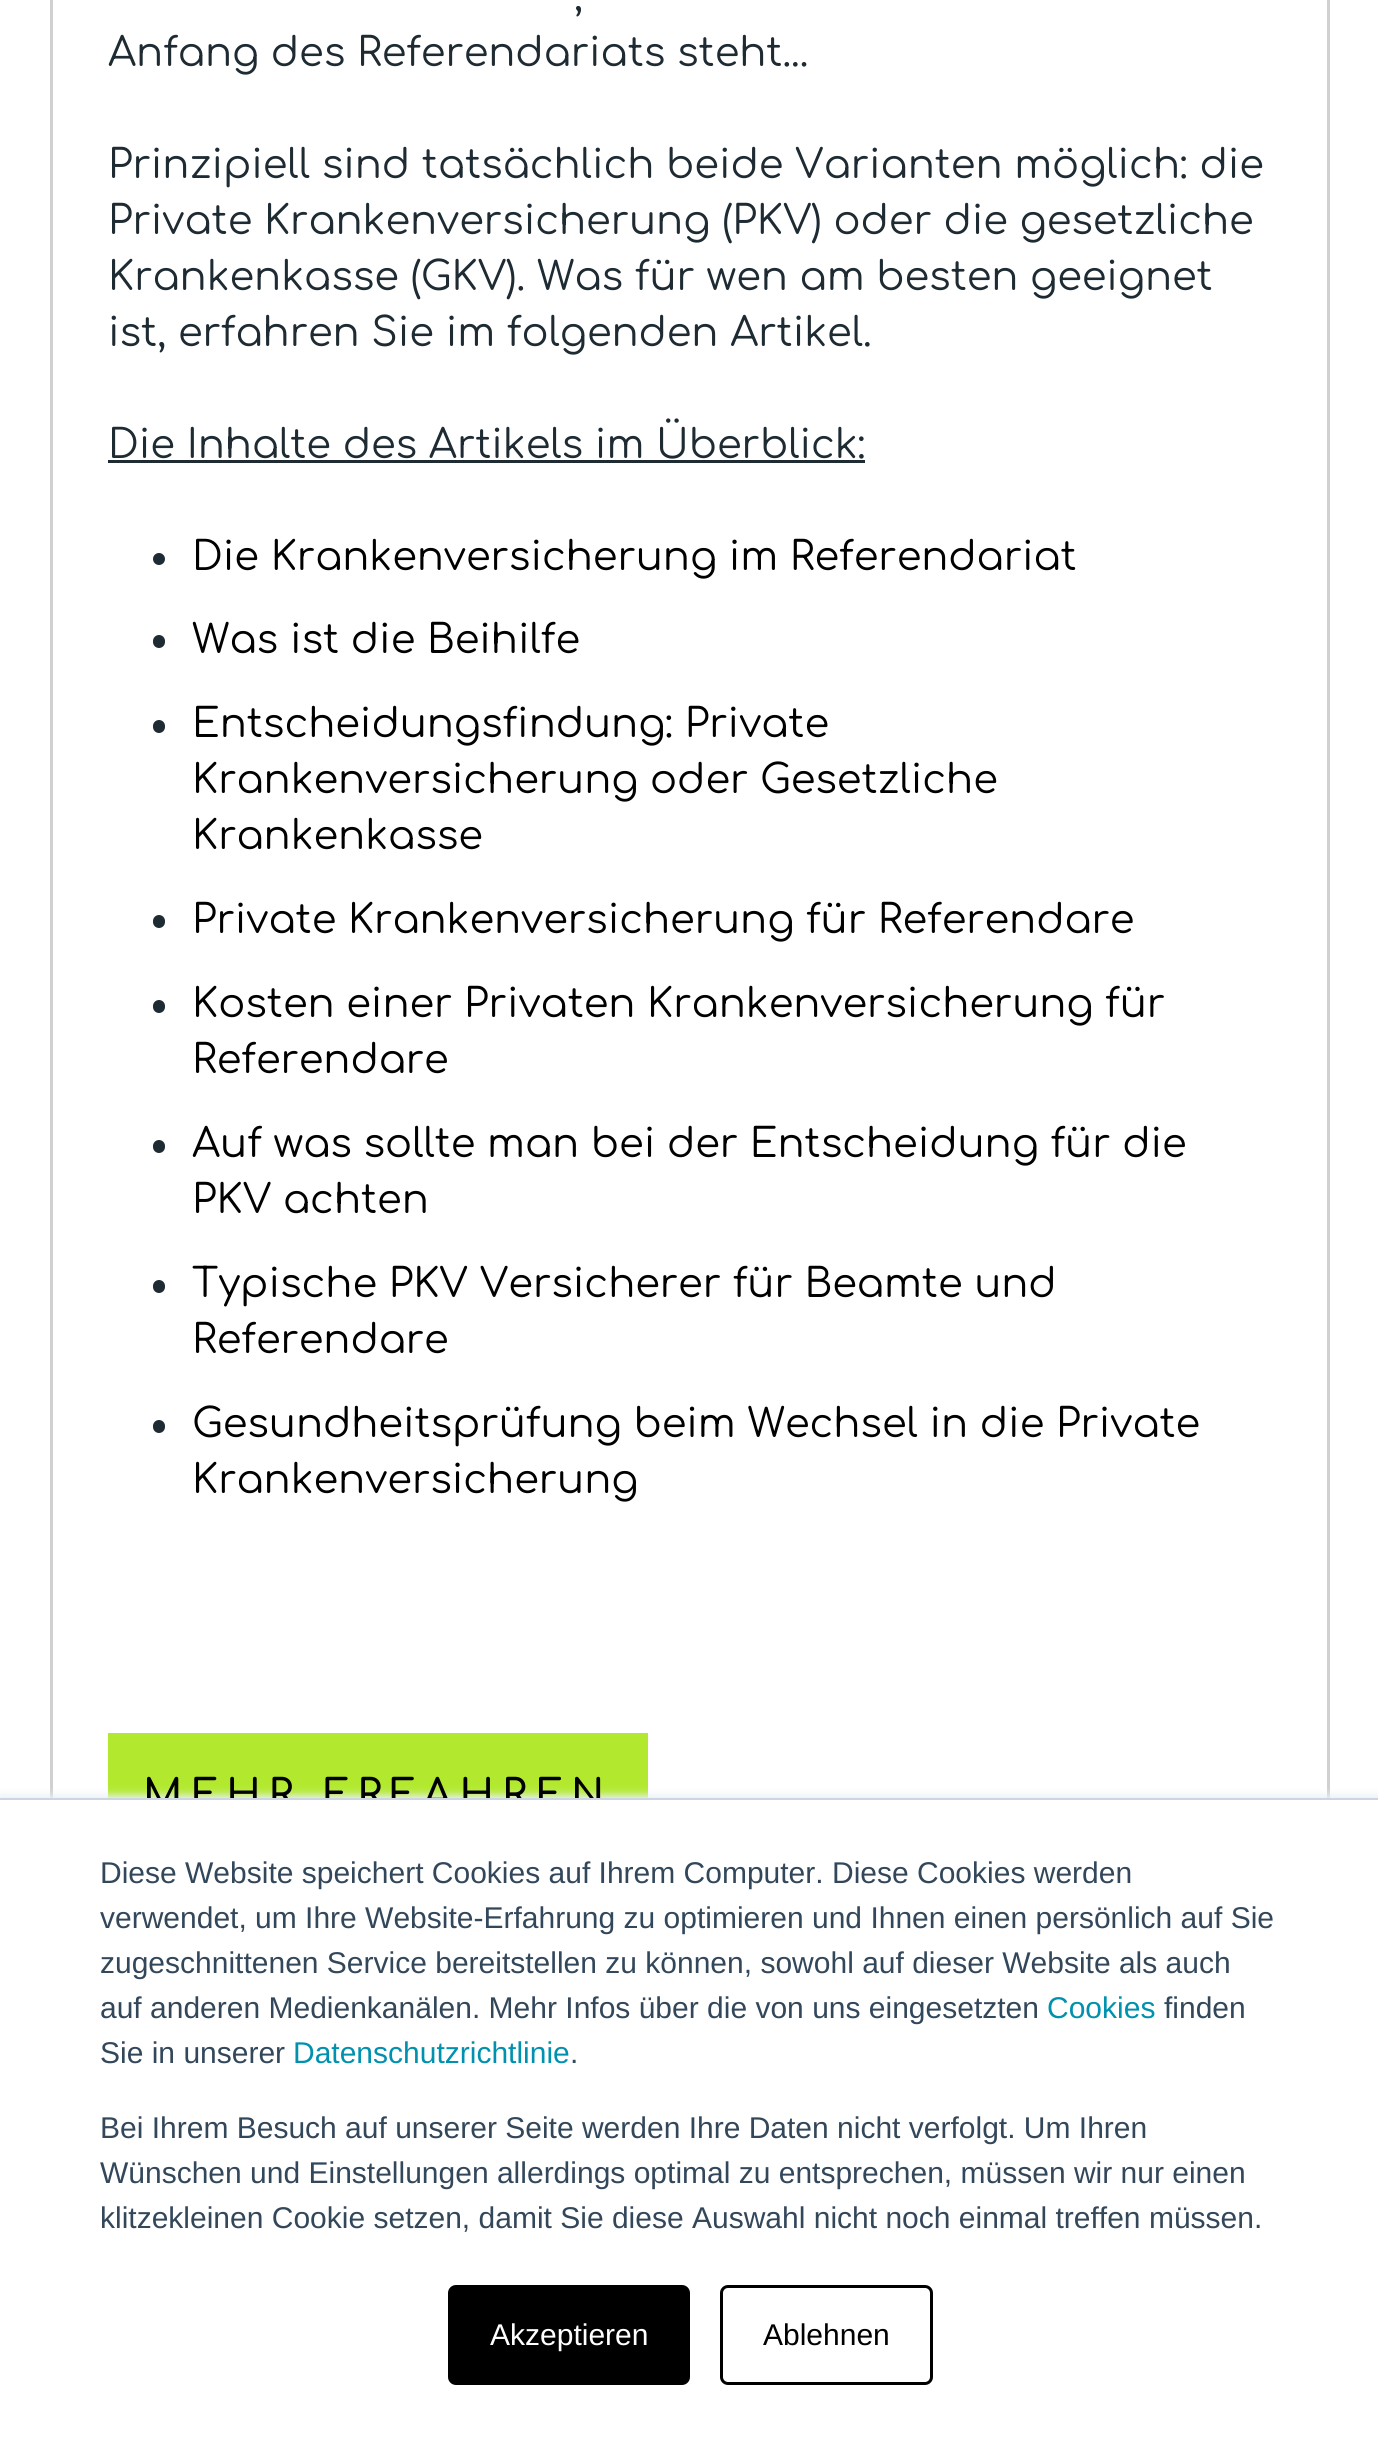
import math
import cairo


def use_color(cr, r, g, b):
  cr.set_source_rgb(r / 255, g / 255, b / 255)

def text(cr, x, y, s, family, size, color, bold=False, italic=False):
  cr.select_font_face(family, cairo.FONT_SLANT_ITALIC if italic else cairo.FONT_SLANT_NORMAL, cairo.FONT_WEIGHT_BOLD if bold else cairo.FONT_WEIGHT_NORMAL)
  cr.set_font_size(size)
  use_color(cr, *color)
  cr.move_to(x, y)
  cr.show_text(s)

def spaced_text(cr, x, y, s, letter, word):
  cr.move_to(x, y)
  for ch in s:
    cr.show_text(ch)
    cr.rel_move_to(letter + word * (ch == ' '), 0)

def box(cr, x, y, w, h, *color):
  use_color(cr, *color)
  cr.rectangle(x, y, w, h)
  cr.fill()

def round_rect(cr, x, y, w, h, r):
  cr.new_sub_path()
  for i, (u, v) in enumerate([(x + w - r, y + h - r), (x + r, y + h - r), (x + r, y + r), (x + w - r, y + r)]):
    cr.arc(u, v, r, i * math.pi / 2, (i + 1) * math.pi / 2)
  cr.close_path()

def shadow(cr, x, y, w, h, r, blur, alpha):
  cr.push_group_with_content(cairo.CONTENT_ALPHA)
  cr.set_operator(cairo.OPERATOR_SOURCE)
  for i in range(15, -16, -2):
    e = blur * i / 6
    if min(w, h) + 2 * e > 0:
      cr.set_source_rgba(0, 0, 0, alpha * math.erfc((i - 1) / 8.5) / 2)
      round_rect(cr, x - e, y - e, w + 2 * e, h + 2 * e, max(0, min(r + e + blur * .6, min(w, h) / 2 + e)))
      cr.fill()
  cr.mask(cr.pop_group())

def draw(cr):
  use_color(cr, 255, 255, 255)
  cr.paint()
  cr.rectangle(51.5, -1.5, 1277, 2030)
  use_color(cr, 208, 208, 208)
  cr.set_line_width(3)
  cr.stroke()
  box(cr, 108, 460, 757, 3, 30, 43, 51)
  cr.arc(159, 559, 6, 0, 2 * math.pi)
  cr.fill()
  round_rect(cr, 153, 635, 12, 13, 6)
  cr.fill()
  round_rect(cr, 153, 720, 12, 13, 6)
  cr.fill()
  round_rect(cr, 153, 915, 12, 13, 6)
  cr.fill()
  round_rect(cr, 153, 1000, 12, 13, 6)
  cr.fill()
  round_rect(cr, 153, 1140, 12, 13, 6)
  cr.fill()
  round_rect(cr, 153, 1280, 12, 13, 6)
  cr.fill()
  round_rect(cr, 153, 1420, 12, 13, 6)
  cr.fill()
  box(cr, 108, 1733, 540, 65, 178, 233, 46)
  use_color(cr, 234, 240, 246)
  shadow(cr, 0, 1795, 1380, 653, 0, 4, 1)
  text(cr, 574, 10, ",", "Comfortaa", 40, (30, 43, 51))
  text(cr, 108, 66, "Anfang des Referendariats steht...", "Comfortaa", 40, (30, 43, 51))
  text(cr, 108, 178, "Prinzipiell sind tatsächlich beide Varianten möglich: die", "Comfortaa", 40, (30, 43, 51))
  text(cr, 108, 234, "Private Krankenversicherung (PKV) oder die gesetzliche", "Comfortaa", 40, (30, 43, 51))
  text(cr, 108, 290, "Krankenkasse (GKV). Was für wen am besten geeignet", "Comfortaa", 40, (30, 43, 51))
  text(cr, 108, 346, "ist, erfahren Sie im folgenden Artikel.", "Comfortaa", 40, (30, 43, 51))
  text(cr, 108, 458, "Die Inhalte des Artikels im Überblick:", "Comfortaa", 40, (30, 43, 51))
  text(cr, 192, 570, "Die Krankenversicherung im Referendariat", "Comfortaa", 40, (0, 0, 0))
  text(cr, 192, 653, "Was ist die Beihilfe", "Comfortaa", 40, (0, 0, 0))
  text(cr, 192, 737, "Entscheidungsfindung: Private", "Comfortaa", 40, (0, 0, 0))
  text(cr, 192, 793, "Krankenversicherung oder Gesetzliche", "Comfortaa", 40, (0, 0, 0))
  text(cr, 192, 849, "Krankenkasse", "Comfortaa", 40, (0, 0, 0))
  text(cr, 192, 933, "Private Krankenversicherung für Referendare", "Comfortaa", 40, (0, 0, 0))
  text(cr, 192, 1017, "Kosten einer Privaten Krankenversicherung für", "Comfortaa", 40, (0, 0, 0))
  text(cr, 192, 1073, "Referendare", "Comfortaa", 40, (0, 0, 0))
  text(cr, 192, 1157, "Auf was sollte man bei der Entscheidung für die", "Comfortaa", 40, (0, 0, 0))
  text(cr, 192, 1213, "PKV achten", "Comfortaa", 40, (0, 0, 0))
  text(cr, 192, 1297, "Typische PKV Versicherer für Beamte und", "Comfortaa", 40, (0, 0, 0))
  text(cr, 192, 1353, "Referendare", "Comfortaa", 40, (0, 0, 0))
  text(cr, 192, 1437, "Gesundheitsprüfung beim Wechsel in die Private", "Comfortaa", 40, (0, 0, 0))
  text(cr, 192, 1493, "Krankenversicherung", "Comfortaa", 40, (0, 0, 0))
  cr.select_font_face("Comfortaa SemiBold")
  spaced_text(cr, 143, 1808, "MEHR ERFAHREN", 8, 0)
  box(cr, 0, 1798, 1378, 2, 203, 214, 226)
  box(cr, 0, 1800, 1378, 649, 255, 255, 255)
  text(cr, 100, 1883, "Diese Website speichert Cookies auf Ihrem Computer. Diese Cookies werden", "Liberation Sans", 30, (51, 71, 91))
  text(cr, 100, 1928, "verwendet, um Ihre Website-Erfahrung zu optimieren und Ihnen einen persönlich auf Sie", "Liberation Sans", 30, (51, 71, 91))
  text(cr, 100, 1973, "zugeschnittenen Service bereitstellen zu können, sowohl auf dieser Website als auch", "Liberation Sans", 30, (51, 71, 91))
  text(cr, 100, 2018, "auf anderen Medienkanälen. Mehr Infos über die von uns eingesetzten", "Liberation Sans", 30, (51, 71, 91))
  text(cr, 1047, 2018, "Cookies", "Liberation Sans", 30, (0, 145, 174))
  text(cr, 1164, 2018, "finden", "Liberation Sans", 30, (51, 71, 91))
  text(cr, 100, 2063, "Sie in unserer", "Liberation Sans", 30, (51, 71, 91))
  text(cr, 293, 2063, "Datenschutzrichtlinie", "Liberation Sans", 30, (0, 145, 174))
  text(cr, 570, 2063, ".", "Liberation Sans", 30, (51, 71, 91))
  text(cr, 100, 2138, "Bei Ihrem Besuch auf unserer Seite werden Ihre Daten nicht verfolgt. Um Ihren", "Liberation Sans", 30, (51, 71, 91))
  text(cr, 100, 2183, "Wünschen und Einstellungen allerdings optimal zu entsprechen, müssen wir nur einen", "Liberation Sans", 30, (51, 71, 91))
  text(cr, 100, 2228, "klitzekleinen Cookie setzen, damit Sie diese Auswahl nicht noch einmal treffen müssen.", "Liberation Sans", 30, (51, 71, 91))
  use_color(cr, 0, 0, 0)
  round_rect(cr, 449.5, 2286.5, 239, 97, 6.5)
  cr.fill_preserve()
  cr.stroke()
  text(cr, 490, 2345, "Akzeptieren", "Liberation Sans", 30, (255, 255, 255))
  round_rect(cr, 721.5, 2286.5, 210, 97, 6.5)
  use_color(cr, 0, 0, 0)
  cr.stroke()
  text(cr, 763, 2345, "Ablehnen", "Liberation Sans", 30, (0, 0, 0))


surface = cairo.ImageSurface(cairo.FORMAT_RGB24, 1378, 2449)
cr = cairo.Context(surface)
options = cairo.FontOptions()
options.set_hint_metrics(cairo.HINT_METRICS_OFF)
options.set_hint_style(cairo.HINT_STYLE_NONE)
cr.set_font_options(options)
cr.set_miter_limit(4)
draw(cr)
surface.write_to_png("out.png")
